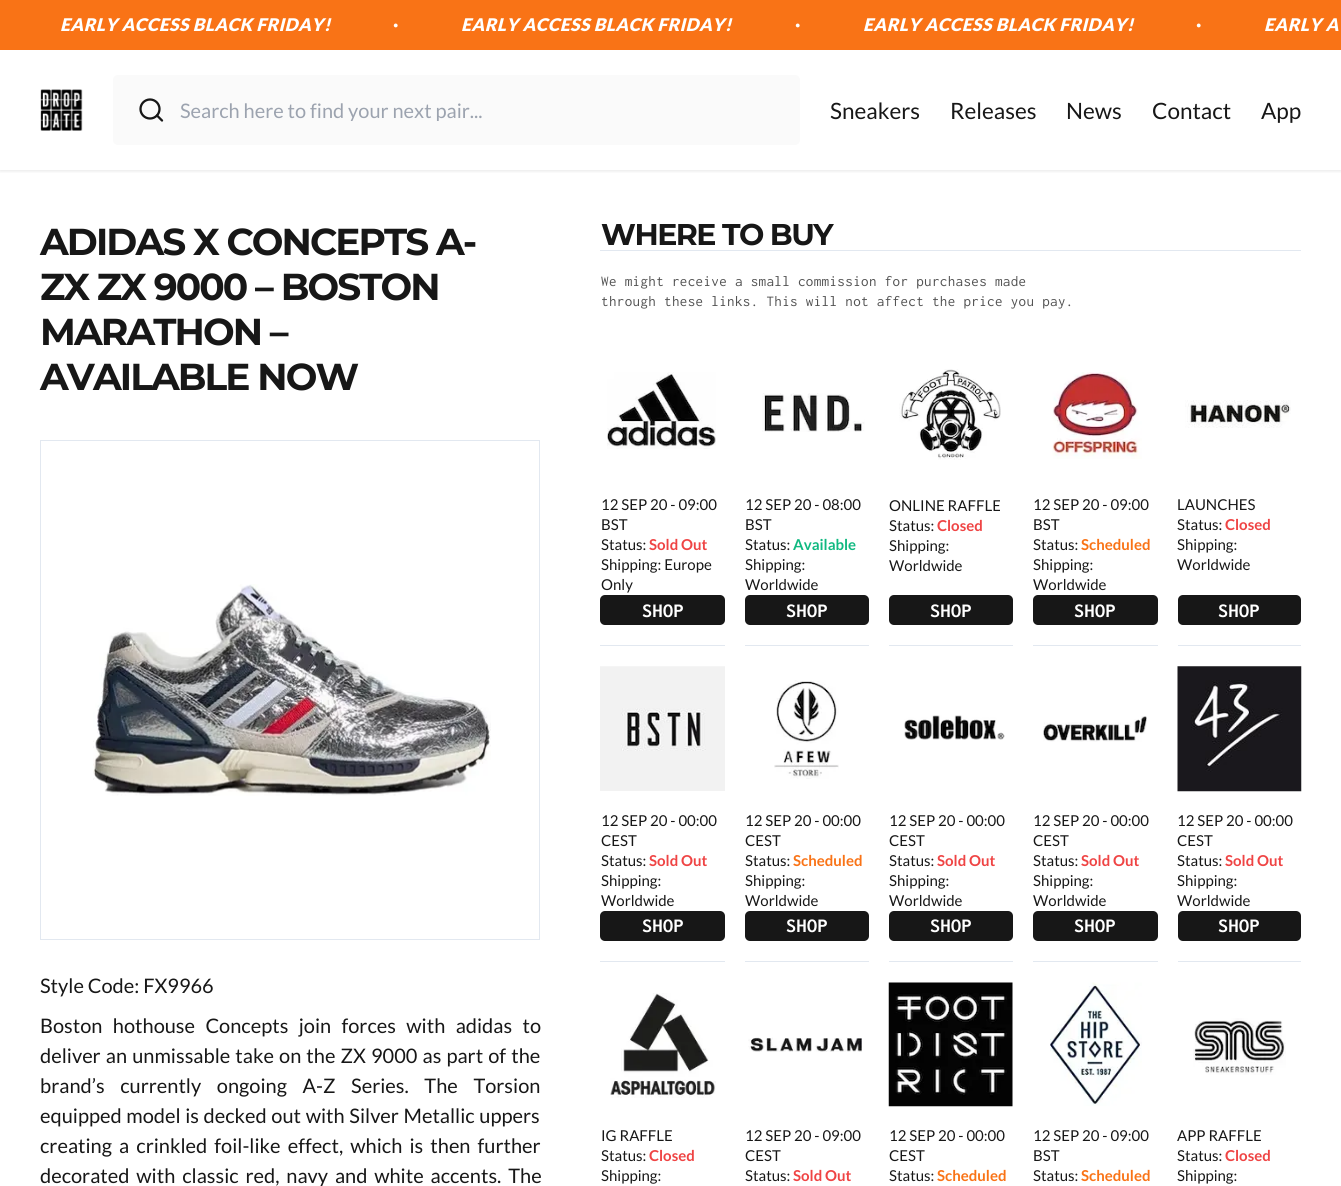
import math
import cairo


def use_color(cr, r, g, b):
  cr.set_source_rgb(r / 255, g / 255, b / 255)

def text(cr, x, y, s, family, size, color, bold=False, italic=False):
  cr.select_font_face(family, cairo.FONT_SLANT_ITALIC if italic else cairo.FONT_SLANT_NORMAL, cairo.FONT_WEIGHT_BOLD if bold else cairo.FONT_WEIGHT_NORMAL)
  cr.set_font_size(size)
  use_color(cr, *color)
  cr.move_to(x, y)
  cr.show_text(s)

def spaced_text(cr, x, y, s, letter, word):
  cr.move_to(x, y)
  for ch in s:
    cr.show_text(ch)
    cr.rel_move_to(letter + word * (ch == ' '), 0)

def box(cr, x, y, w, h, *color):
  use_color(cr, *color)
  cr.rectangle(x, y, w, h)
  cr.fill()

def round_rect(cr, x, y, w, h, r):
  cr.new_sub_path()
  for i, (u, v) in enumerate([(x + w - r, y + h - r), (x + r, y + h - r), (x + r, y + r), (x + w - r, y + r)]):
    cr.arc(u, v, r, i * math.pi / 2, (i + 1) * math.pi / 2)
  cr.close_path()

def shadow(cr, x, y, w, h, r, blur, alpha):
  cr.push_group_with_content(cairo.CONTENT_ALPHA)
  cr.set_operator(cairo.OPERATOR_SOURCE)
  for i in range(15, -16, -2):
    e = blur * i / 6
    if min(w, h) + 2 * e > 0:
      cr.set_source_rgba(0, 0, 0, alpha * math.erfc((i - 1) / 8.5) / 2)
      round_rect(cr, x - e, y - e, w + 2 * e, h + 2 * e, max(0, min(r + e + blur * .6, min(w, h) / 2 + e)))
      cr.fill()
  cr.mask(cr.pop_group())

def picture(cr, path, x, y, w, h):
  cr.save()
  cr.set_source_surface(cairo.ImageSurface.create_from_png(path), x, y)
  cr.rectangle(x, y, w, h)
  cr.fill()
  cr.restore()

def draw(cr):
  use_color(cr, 255, 255, 255)
  cr.paint()
  cr.save()
  cr.rectangle(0, 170, 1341, 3)
  cr.clip()
  use_color(cr, 0, 0, 0)
  shadow(cr, 0, 51, 1341, 120, 0, 2, 0.1)
  cr.restore()
  box(cr, 0, 0, 1341, 50, 249, 115, 22)
  picture(cr, "img_01.png", 40, 89, 43, 42)
  use_color(cr, 250, 250, 250)
  round_rect(cr, 113, 75, 687, 70, 5)
  cr.fill()
  cr.arc(150, 109, 9.5, 0, 2 * math.pi)
  use_color(cr, 23, 23, 23)
  cr.set_line_width(2.3)
  cr.stroke()
  cr.new_path()
  cr.move_to(162, 120.5)
  cr.line_to(157, 115.5)
  cr.set_line_cap(cairo.LINE_CAP_ROUND)
  cr.set_line_join(cairo.LINE_JOIN_ROUND)
  cr.stroke()
  cr.rectangle(40.5, 440.5, 499, 499)
  use_color(cr, 226, 232, 240)
  cr.set_line_width(1)
  cr.set_line_cap(cairo.LINE_CAP_BUTT)
  cr.set_line_join(cairo.LINE_JOIN_MITER)
  cr.stroke()
  picture(cr, "img_02.png", 93, 584, 398, 212)
  box(cr, 600, 250, 701, 1, 226, 232, 240)
  box(cr, 600, 645, 125, 1, 226, 232, 240)
  picture(cr, "img_03.png", 607, 372, 109, 77)
  use_color(cr, 23, 23, 23)
  round_rect(cr, 600, 595, 125, 30, 5)
  cr.fill()
  box(cr, 745, 645, 124, 1, 226, 232, 240)
  picture(cr, "img_04.png", 762, 393, 103, 39)
  use_color(cr, 23, 23, 23)
  round_rect(cr, 745, 595, 124, 30, 5)
  cr.fill()
  box(cr, 889, 645, 124, 1, 226, 232, 240)
  picture(cr, "img_05.png", 899, 369, 102, 91)
  use_color(cr, 23, 23, 23)
  round_rect(cr, 889, 595, 124, 30, 5)
  cr.fill()
  box(cr, 1033, 645, 125, 1, 226, 232, 240)
  picture(cr, "img_06.png", 1052, 372, 90, 87)
  use_color(cr, 23, 23, 23)
  round_rect(cr, 1033, 595, 125, 30, 5)
  cr.fill()
  box(cr, 1178, 645, 123, 1, 226, 232, 240)
  picture(cr, "img_07.png", 1185, 400, 106, 28)
  use_color(cr, 23, 23, 23)
  round_rect(cr, 1178, 595, 123, 30, 5)
  cr.fill()
  box(cr, 600, 961, 125, 1, 226, 232, 240)
  picture(cr, "img_08.png", 600, 666, 125, 125)
  use_color(cr, 23, 23, 23)
  round_rect(cr, 600, 911, 125, 30, 5)
  cr.fill()
  box(cr, 745, 961, 124, 1, 226, 232, 240)
  picture(cr, "img_09.png", 774, 680, 65, 99)
  use_color(cr, 23, 23, 23)
  round_rect(cr, 745, 911, 124, 30, 5)
  cr.fill()
  box(cr, 889, 961, 124, 1, 226, 232, 240)
  picture(cr, "img_10.png", 904, 715, 101, 25)
  use_color(cr, 23, 23, 23)
  round_rect(cr, 889, 911, 124, 30, 5)
  cr.fill()
  box(cr, 1033, 961, 125, 1, 226, 232, 240)
  picture(cr, "img_11.png", 1043, 716, 104, 26)
  use_color(cr, 23, 23, 23)
  round_rect(cr, 1033, 911, 125, 30, 5)
  cr.fill()
  box(cr, 1178, 961, 123, 1, 226, 232, 240)
  picture(cr, "img_12.png", 1177, 666, 125, 126)
  use_color(cr, 23, 23, 23)
  round_rect(cr, 1178, 911, 123, 30, 5)
  cr.fill()
  picture(cr, "img_13.png", 610, 993, 106, 105)
  picture(cr, "img_14.png", 748, 1037, 114, 15)
  picture(cr, "img_15.png", 888, 982, 125, 125)
  picture(cr, "img_16.png", 1050, 982, 92, 124)
  picture(cr, "img_17.png", 1193, 1018, 93, 57)
  cr.select_font_face("Lato Black", cairo.FONT_SLANT_ITALIC)
  cr.set_font_size(17.5)
  use_color(cr, 255, 255, 255)
  spaced_text(cr, 60, 31, "EARLY ACCESS BLACK FRIDAY!", 0.45, 0)
  text(cr, 393, 28, "●", "Liberation Serif", 9, (255, 255, 255), bold=True, italic=True)
  cr.select_font_face("Lato Black", cairo.FONT_SLANT_ITALIC)
  cr.set_font_size(17.5)
  spaced_text(cr, 461, 31, "EARLY ACCESS BLACK FRIDAY!", 0.45, 0)
  text(cr, 795, 28, "●", "Liberation Serif", 9, (255, 255, 255), bold=True, italic=True)
  cr.select_font_face("Lato Black", cairo.FONT_SLANT_ITALIC)
  cr.set_font_size(17.5)
  spaced_text(cr, 863, 31, "EARLY ACCESS BLACK FRIDAY!", 0.45, 0)
  text(cr, 1196, 28, "●", "Liberation Serif", 9, (255, 255, 255), bold=True, italic=True)
  cr.select_font_face("Lato Black", cairo.FONT_SLANT_ITALIC)
  cr.set_font_size(17.5)
  spaced_text(cr, 1264, 31, "EARLY A", 0.45, 0)
  cr.save()
  cr.rectangle(180, 98, 590, 23)
  cr.clip()
  text(cr, 180, 118, "Search here to find your next pair...", "Lato", 20, (156, 163, 175))
  cr.restore()
  text(cr, 830, 119, "Sneakers", "Lato", 22.5, (23, 23, 23))
  text(cr, 950, 119, "Releases", "Lato", 22.5, (23, 23, 23))
  text(cr, 1066, 119, "News", "Lato", 22.5, (23, 23, 23))
  text(cr, 1152, 119, "Contact", "Lato", 22.5, (23, 23, 23))
  text(cr, 1261, 119, "App", "Lato", 22.5, (23, 23, 23))
  cr.select_font_face("Montserrat", cairo.FONT_SLANT_NORMAL, cairo.FONT_WEIGHT_BOLD)
  cr.set_font_size(37.5)
  spaced_text(cr, 40, 255, "ADIDAS X CONCEPTS A-", -1.9, 0)
  spaced_text(cr, 40, 300, "ZX ZX 9000 – BOSTON", -1.9, 0)
  spaced_text(cr, 40, 345, "MARATHON –", -1.9, 0)
  spaced_text(cr, 40, 390, "AVAILABLE NOW", -1.9, 0)
  text(cr, 40, 993, "Style Code: FX9966", "Lato", 20, (23, 23, 23))
  spaced_text(cr, 40, 1033, "Boston hothouse Concepts join forces with adidas to", 0, 6.5)
  spaced_text(cr, 40, 1063, "deliver an unmissable take on the ZX 9000 as part of the", 0, 1.25)
  spaced_text(cr, 40, 1093, "brand’s currently ongoing A-Z Series. The Torsion", 0, 11.75)
  spaced_text(cr, 40, 1123, "equipped model is decked out with Silver Metallic uppers", 0, 0.75)
  spaced_text(cr, 40, 1153, "creating a crinkled foil-like effect, which is then further", 0, 3.25)
  spaced_text(cr, 40, 1183, "decorated with classic red, navy and white accents. The", 0, 3)
  cr.select_font_face("Montserrat", cairo.FONT_SLANT_NORMAL, cairo.FONT_WEIGHT_BOLD)
  cr.set_font_size(30)
  spaced_text(cr, 601, 245, "WHERE TO BUY", -1.5, 0)
  cr.select_font_face("Inconsolata")
  cr.set_font_size(15)
  use_color(cr, 82, 82, 82)
  spaced_text(cr, 601, 286, "We might receive a small commission for purchases made", 0.38, 0)
  spaced_text(cr, 601, 306, "through these links. This will not affect the price you pay.", 0.38, 0)
  text(cr, 601, 510, "12 SEP 20 - 09:00", "Lato", 15, (23, 23, 23))
  text(cr, 601, 530, "BST", "Lato", 15, (23, 23, 23))
  text(cr, 601, 550, "Status:", "Lato", 15, (23, 23, 23))
  text(cr, 649, 550, "Sold Out", "Lato", 15, (239, 68, 68), bold=True)
  text(cr, 601, 570, "Shipping: Europe", "Lato", 15, (23, 23, 23))
  text(cr, 601, 590, "Only", "Lato", 15, (23, 23, 23))
  cr.select_font_face("Inconsolata", cairo.FONT_SLANT_NORMAL, cairo.FONT_WEIGHT_BOLD)
  cr.set_font_size(20)
  use_color(cr, 255, 255, 255)
  spaced_text(cr, 642, 617, "SHOP", 0.5, 0)
  text(cr, 745, 510, "12 SEP 20 - 08:00", "Lato", 15, (23, 23, 23))
  text(cr, 745, 530, "BST", "Lato", 15, (23, 23, 23))
  text(cr, 745, 550, "Status:", "Lato", 15, (23, 23, 23))
  text(cr, 793, 550, "Available", "Lato", 15, (16, 185, 129), bold=True)
  text(cr, 745, 570, "Shipping:", "Lato", 15, (23, 23, 23))
  text(cr, 745, 590, "Worldwide", "Lato", 15, (23, 23, 23))
  cr.select_font_face("Inconsolata", cairo.FONT_SLANT_NORMAL, cairo.FONT_WEIGHT_BOLD)
  cr.set_font_size(20)
  use_color(cr, 255, 255, 255)
  spaced_text(cr, 786, 617, "SHOP", 0.5, 0)
  text(cr, 889, 511, "ONLINE RAFFLE", "Lato", 15, (23, 23, 23))
  text(cr, 889, 531, "Status:", "Lato", 15, (23, 23, 23))
  text(cr, 937, 531, "Closed", "Lato", 15, (239, 68, 68), bold=True)
  text(cr, 889, 551, "Shipping:", "Lato", 15, (23, 23, 23))
  text(cr, 889, 571, "Worldwide", "Lato", 15, (23, 23, 23))
  cr.select_font_face("Inconsolata", cairo.FONT_SLANT_NORMAL, cairo.FONT_WEIGHT_BOLD)
  cr.set_font_size(20)
  use_color(cr, 255, 255, 255)
  spaced_text(cr, 930, 617, "SHOP", 0.5, 0)
  text(cr, 1033, 510, "12 SEP 20 - 09:00", "Lato", 15, (23, 23, 23))
  text(cr, 1033, 530, "BST", "Lato", 15, (23, 23, 23))
  text(cr, 1033, 550, "Status:", "Lato", 15, (23, 23, 23))
  text(cr, 1081, 550, "Scheduled", "Lato", 15, (249, 115, 22), bold=True)
  text(cr, 1033, 570, "Shipping:", "Lato", 15, (23, 23, 23))
  text(cr, 1033, 590, "Worldwide", "Lato", 15, (23, 23, 23))
  cr.select_font_face("Inconsolata", cairo.FONT_SLANT_NORMAL, cairo.FONT_WEIGHT_BOLD)
  cr.set_font_size(20)
  use_color(cr, 255, 255, 255)
  spaced_text(cr, 1074, 617, "SHOP", 0.5, 0)
  text(cr, 1177, 510, "LAUNCHES", "Lato", 15, (23, 23, 23))
  text(cr, 1177, 530, "Status:", "Lato", 15, (23, 23, 23))
  text(cr, 1225, 530, "Closed", "Lato", 15, (239, 68, 68), bold=True)
  text(cr, 1177, 550, "Shipping:", "Lato", 15, (23, 23, 23))
  text(cr, 1177, 570, "Worldwide", "Lato", 15, (23, 23, 23))
  cr.select_font_face("Inconsolata", cairo.FONT_SLANT_NORMAL, cairo.FONT_WEIGHT_BOLD)
  cr.set_font_size(20)
  use_color(cr, 255, 255, 255)
  spaced_text(cr, 1218, 617, "SHOP", 0.5, 0)
  text(cr, 601, 826, "12 SEP 20 - 00:00", "Lato", 15, (23, 23, 23))
  text(cr, 601, 846, "CEST", "Lato", 15, (23, 23, 23))
  text(cr, 601, 866, "Status:", "Lato", 15, (23, 23, 23))
  text(cr, 649, 866, "Sold Out", "Lato", 15, (239, 68, 68), bold=True)
  text(cr, 601, 886, "Shipping:", "Lato", 15, (23, 23, 23))
  text(cr, 601, 906, "Worldwide", "Lato", 15, (23, 23, 23))
  cr.select_font_face("Inconsolata", cairo.FONT_SLANT_NORMAL, cairo.FONT_WEIGHT_BOLD)
  cr.set_font_size(20)
  use_color(cr, 255, 255, 255)
  spaced_text(cr, 642, 932, "SHOP", 0.5, 0)
  text(cr, 745, 826, "12 SEP 20 - 00:00", "Lato", 15, (23, 23, 23))
  text(cr, 745, 846, "CEST", "Lato", 15, (23, 23, 23))
  text(cr, 745, 866, "Status:", "Lato", 15, (23, 23, 23))
  text(cr, 793, 866, "Scheduled", "Lato", 15, (249, 115, 22), bold=True)
  text(cr, 745, 886, "Shipping:", "Lato", 15, (23, 23, 23))
  text(cr, 745, 906, "Worldwide", "Lato", 15, (23, 23, 23))
  cr.select_font_face("Inconsolata", cairo.FONT_SLANT_NORMAL, cairo.FONT_WEIGHT_BOLD)
  cr.set_font_size(20)
  use_color(cr, 255, 255, 255)
  spaced_text(cr, 786, 932, "SHOP", 0.5, 0)
  text(cr, 889, 826, "12 SEP 20 - 00:00", "Lato", 15, (23, 23, 23))
  text(cr, 889, 846, "CEST", "Lato", 15, (23, 23, 23))
  text(cr, 889, 866, "Status:", "Lato", 15, (23, 23, 23))
  text(cr, 937, 866, "Sold Out", "Lato", 15, (239, 68, 68), bold=True)
  text(cr, 889, 886, "Shipping:", "Lato", 15, (23, 23, 23))
  text(cr, 889, 906, "Worldwide", "Lato", 15, (23, 23, 23))
  cr.select_font_face("Inconsolata", cairo.FONT_SLANT_NORMAL, cairo.FONT_WEIGHT_BOLD)
  cr.set_font_size(20)
  use_color(cr, 255, 255, 255)
  spaced_text(cr, 930, 932, "SHOP", 0.5, 0)
  text(cr, 1033, 826, "12 SEP 20 - 00:00", "Lato", 15, (23, 23, 23))
  text(cr, 1033, 846, "CEST", "Lato", 15, (23, 23, 23))
  text(cr, 1033, 866, "Status:", "Lato", 15, (23, 23, 23))
  text(cr, 1081, 866, "Sold Out", "Lato", 15, (239, 68, 68), bold=True)
  text(cr, 1033, 886, "Shipping:", "Lato", 15, (23, 23, 23))
  text(cr, 1033, 906, "Worldwide", "Lato", 15, (23, 23, 23))
  cr.select_font_face("Inconsolata", cairo.FONT_SLANT_NORMAL, cairo.FONT_WEIGHT_BOLD)
  cr.set_font_size(20)
  use_color(cr, 255, 255, 255)
  spaced_text(cr, 1074, 932, "SHOP", 0.5, 0)
  text(cr, 1177, 826, "12 SEP 20 - 00:00", "Lato", 15, (23, 23, 23))
  text(cr, 1177, 846, "CEST", "Lato", 15, (23, 23, 23))
  text(cr, 1177, 866, "Status:", "Lato", 15, (23, 23, 23))
  text(cr, 1225, 866, "Sold Out", "Lato", 15, (239, 68, 68), bold=True)
  text(cr, 1177, 886, "Shipping:", "Lato", 15, (23, 23, 23))
  text(cr, 1177, 906, "Worldwide", "Lato", 15, (23, 23, 23))
  cr.select_font_face("Inconsolata", cairo.FONT_SLANT_NORMAL, cairo.FONT_WEIGHT_BOLD)
  cr.set_font_size(20)
  use_color(cr, 255, 255, 255)
  spaced_text(cr, 1218, 932, "SHOP", 0.5, 0)
  text(cr, 601, 1141, "IG RAFFLE", "Lato", 15, (23, 23, 23))
  text(cr, 601, 1161, "Status:", "Lato", 15, (23, 23, 23))
  text(cr, 649, 1161, "Closed", "Lato", 15, (239, 68, 68), bold=True)
  text(cr, 601, 1181, "Shipping:", "Lato", 15, (23, 23, 23))
  text(cr, 745, 1141, "12 SEP 20 - 09:00", "Lato", 15, (23, 23, 23))
  text(cr, 745, 1161, "CEST", "Lato", 15, (23, 23, 23))
  text(cr, 745, 1181, "Status:", "Lato", 15, (23, 23, 23))
  text(cr, 793, 1181, "Sold Out", "Lato", 15, (239, 68, 68), bold=True)
  text(cr, 889, 1141, "12 SEP 20 - 00:00", "Lato", 15, (23, 23, 23))
  text(cr, 889, 1161, "CEST", "Lato", 15, (23, 23, 23))
  text(cr, 889, 1181, "Status:", "Lato", 15, (23, 23, 23))
  text(cr, 937, 1181, "Scheduled", "Lato", 15, (249, 115, 22), bold=True)
  text(cr, 1033, 1141, "12 SEP 20 - 09:00", "Lato", 15, (23, 23, 23))
  text(cr, 1033, 1161, "BST", "Lato", 15, (23, 23, 23))
  text(cr, 1033, 1181, "Status:", "Lato", 15, (23, 23, 23))
  text(cr, 1081, 1181, "Scheduled", "Lato", 15, (249, 115, 22), bold=True)
  text(cr, 1177, 1141, "APP RAFFLE", "Lato", 15, (23, 23, 23))
  text(cr, 1177, 1161, "Status:", "Lato", 15, (23, 23, 23))
  text(cr, 1225, 1161, "Closed", "Lato", 15, (239, 68, 68), bold=True)
  text(cr, 1177, 1181, "Shipping:", "Lato", 15, (23, 23, 23))


surface = cairo.ImageSurface(cairo.FORMAT_RGB24, 1341, 1186)
cr = cairo.Context(surface)
options = cairo.FontOptions()
options.set_hint_metrics(cairo.HINT_METRICS_OFF)
options.set_hint_style(cairo.HINT_STYLE_NONE)
cr.set_font_options(options)
cr.set_miter_limit(4)
draw(cr)
surface.write_to_png("out.png")
